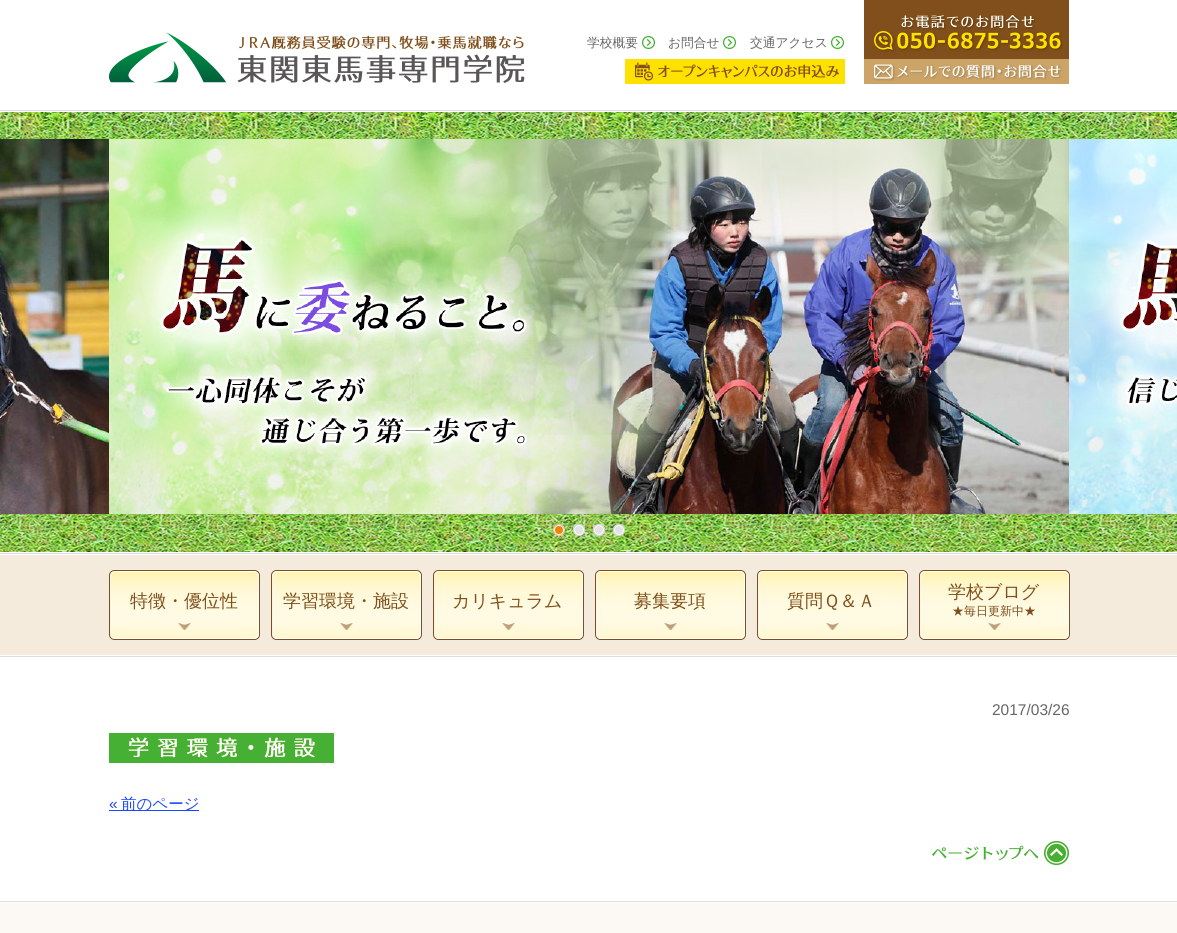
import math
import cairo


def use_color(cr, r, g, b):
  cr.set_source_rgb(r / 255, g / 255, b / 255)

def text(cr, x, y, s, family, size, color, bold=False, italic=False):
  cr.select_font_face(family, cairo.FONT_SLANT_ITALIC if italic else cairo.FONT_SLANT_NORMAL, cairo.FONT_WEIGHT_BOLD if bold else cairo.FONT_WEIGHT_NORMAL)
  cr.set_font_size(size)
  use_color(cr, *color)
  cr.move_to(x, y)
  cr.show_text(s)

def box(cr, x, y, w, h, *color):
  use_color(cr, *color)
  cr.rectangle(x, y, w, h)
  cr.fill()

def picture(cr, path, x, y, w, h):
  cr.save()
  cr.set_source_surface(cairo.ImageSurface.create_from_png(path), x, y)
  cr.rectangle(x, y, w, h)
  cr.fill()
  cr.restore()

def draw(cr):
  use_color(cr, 255, 255, 255)
  cr.paint()
  box(cr, 0, 656, 1177, 1, 221, 221, 221)
  picture(cr, "img_01.png", 109, 32, 416, 51)
  picture(cr, "img_02.png", 864, 0, 205, 59)
  picture(cr, "img_03.png", 642, 36, 13, 13)
  picture(cr, "img_03.png", 723, 36, 13, 13)
  picture(cr, "img_03.png", 831, 36, 13, 13)
  picture(cr, "img_04.png", 625, 59, 220, 25)
  picture(cr, "img_05.png", 864, 59, 205, 25)
  picture(cr, "img_06.png", 0, 112, 1177, 440)
  box(cr, 0, 110, 1177, 1, 221, 221, 221)
  picture(cr, "img_07.png", 0, 139, 109, 375)
  picture(cr, "img_08.png", 109, 139, 960, 375)
  picture(cr, "img_09.png", 1069, 139, 108, 375)
  use_color(cr, 240, 131, 0)
  cr.arc(559, 530, 6, 0, 2 * math.pi)
  cr.fill()
  cr.arc(559, 530, 4.5, 0, 2 * math.pi)
  use_color(cr, 255, 255, 255)
  cr.set_line_width(1)
  cr.stroke()
  cr.arc(559, 530, 5.5, 0, 2 * math.pi)
  use_color(cr, 211, 211, 211)
  cr.stroke()
  use_color(cr, 226, 226, 226)
  cr.arc(579, 530, 6, 0, 2 * math.pi)
  cr.fill()
  cr.arc(579, 530, 4.5, 0, 2 * math.pi)
  use_color(cr, 255, 255, 255)
  cr.stroke()
  cr.arc(579, 530, 5.5, 0, 2 * math.pi)
  use_color(cr, 211, 211, 211)
  cr.stroke()
  use_color(cr, 226, 226, 226)
  cr.arc(599, 530, 6, 0, 2 * math.pi)
  cr.fill()
  cr.arc(599, 530, 4.5, 0, 2 * math.pi)
  use_color(cr, 255, 255, 255)
  cr.stroke()
  cr.arc(599, 530, 5.5, 0, 2 * math.pi)
  use_color(cr, 211, 211, 211)
  cr.stroke()
  use_color(cr, 226, 226, 226)
  cr.arc(619, 530, 6, 0, 2 * math.pi)
  cr.fill()
  cr.arc(619, 530, 4.5, 0, 2 * math.pi)
  use_color(cr, 255, 255, 255)
  cr.stroke()
  cr.arc(619, 530, 5.5, 0, 2 * math.pi)
  use_color(cr, 211, 211, 211)
  cr.stroke()
  box(cr, 0, 553, 1177, 1, 221, 221, 221)
  box(cr, 0, 555, 1177, 100, 244, 235, 221)
  picture(cr, "img_10.png", 109, 570, 151, 70)
  picture(cr, "img_10.png", 271, 570, 151, 70)
  picture(cr, "img_10.png", 433, 570, 151, 70)
  picture(cr, "img_10.png", 595, 570, 151, 70)
  picture(cr, "img_10.png", 757, 570, 151, 70)
  picture(cr, "img_10.png", 919, 570, 151, 70)
  picture(cr, "img_11.png", 109, 733, 225, 30)
  box(cr, 109, 810, 90, 1, 25, 72, 254)
  picture(cr, "img_12.png", 932, 841, 137, 24)
  box(cr, 0, 903, 1177, 30, 252, 249, 245)
  box(cr, 0, 901, 1177, 1, 221, 221, 221)
  text(cr, 587, 47, "学校概要", "WenQuanYi Zen Hei Medium", 12.75, (102, 102, 102))
  text(cr, 668, 47, "お問合せ", "WenQuanYi Zen Hei Medium", 12.75, (102, 102, 102))
  text(cr, 750, 47, "交通アクセス", "WenQuanYi Zen Hei Medium", 12.75, (102, 102, 102))
  text(cr, 130, 607, "特徴・優位性", "WenQuanYi Zen Hei Medium", 18, (128, 79, 27))
  text(cr, 283, 607, "学習環境・施設", "WenQuanYi Zen Hei Medium", 18, (128, 79, 27))
  text(cr, 452, 607, "カリキュラム", "WenQuanYi Zen Hei Medium", 18, (128, 79, 27))
  text(cr, 634, 607, "募集要項", "WenQuanYi Zen Hei Medium", 18, (128, 79, 27))
  text(cr, 787, 607, "質問Ｑ＆Ａ", "WenQuanYi Zen Hei Medium", 18, (128, 79, 27))
  text(cr, 948, 598, "学校ブログ", "WenQuanYi Zen Hei Medium", 18, (128, 79, 27))
  text(cr, 952, 615, "★毎日更新中★", "WenQuanYi Zen Hei Medium", 12, (128, 79, 27))
  text(cr, 992, 715, "2017/03/26", "Liberation Sans", 15.5, (102, 102, 102))
  text(cr, 109, 809, "«", "Liberation Sans", 15.5, (25, 72, 254))
  text(cr, 121, 809, "前のページ", "WenQuanYi Zen Hei Medium", 15.5, (25, 72, 254))


surface = cairo.ImageSurface(cairo.FORMAT_RGB24, 1177, 933)
cr = cairo.Context(surface)
options = cairo.FontOptions()
options.set_hint_metrics(cairo.HINT_METRICS_OFF)
options.set_hint_style(cairo.HINT_STYLE_NONE)
cr.set_font_options(options)
cr.set_miter_limit(4)
draw(cr)
surface.write_to_png("out.png")
